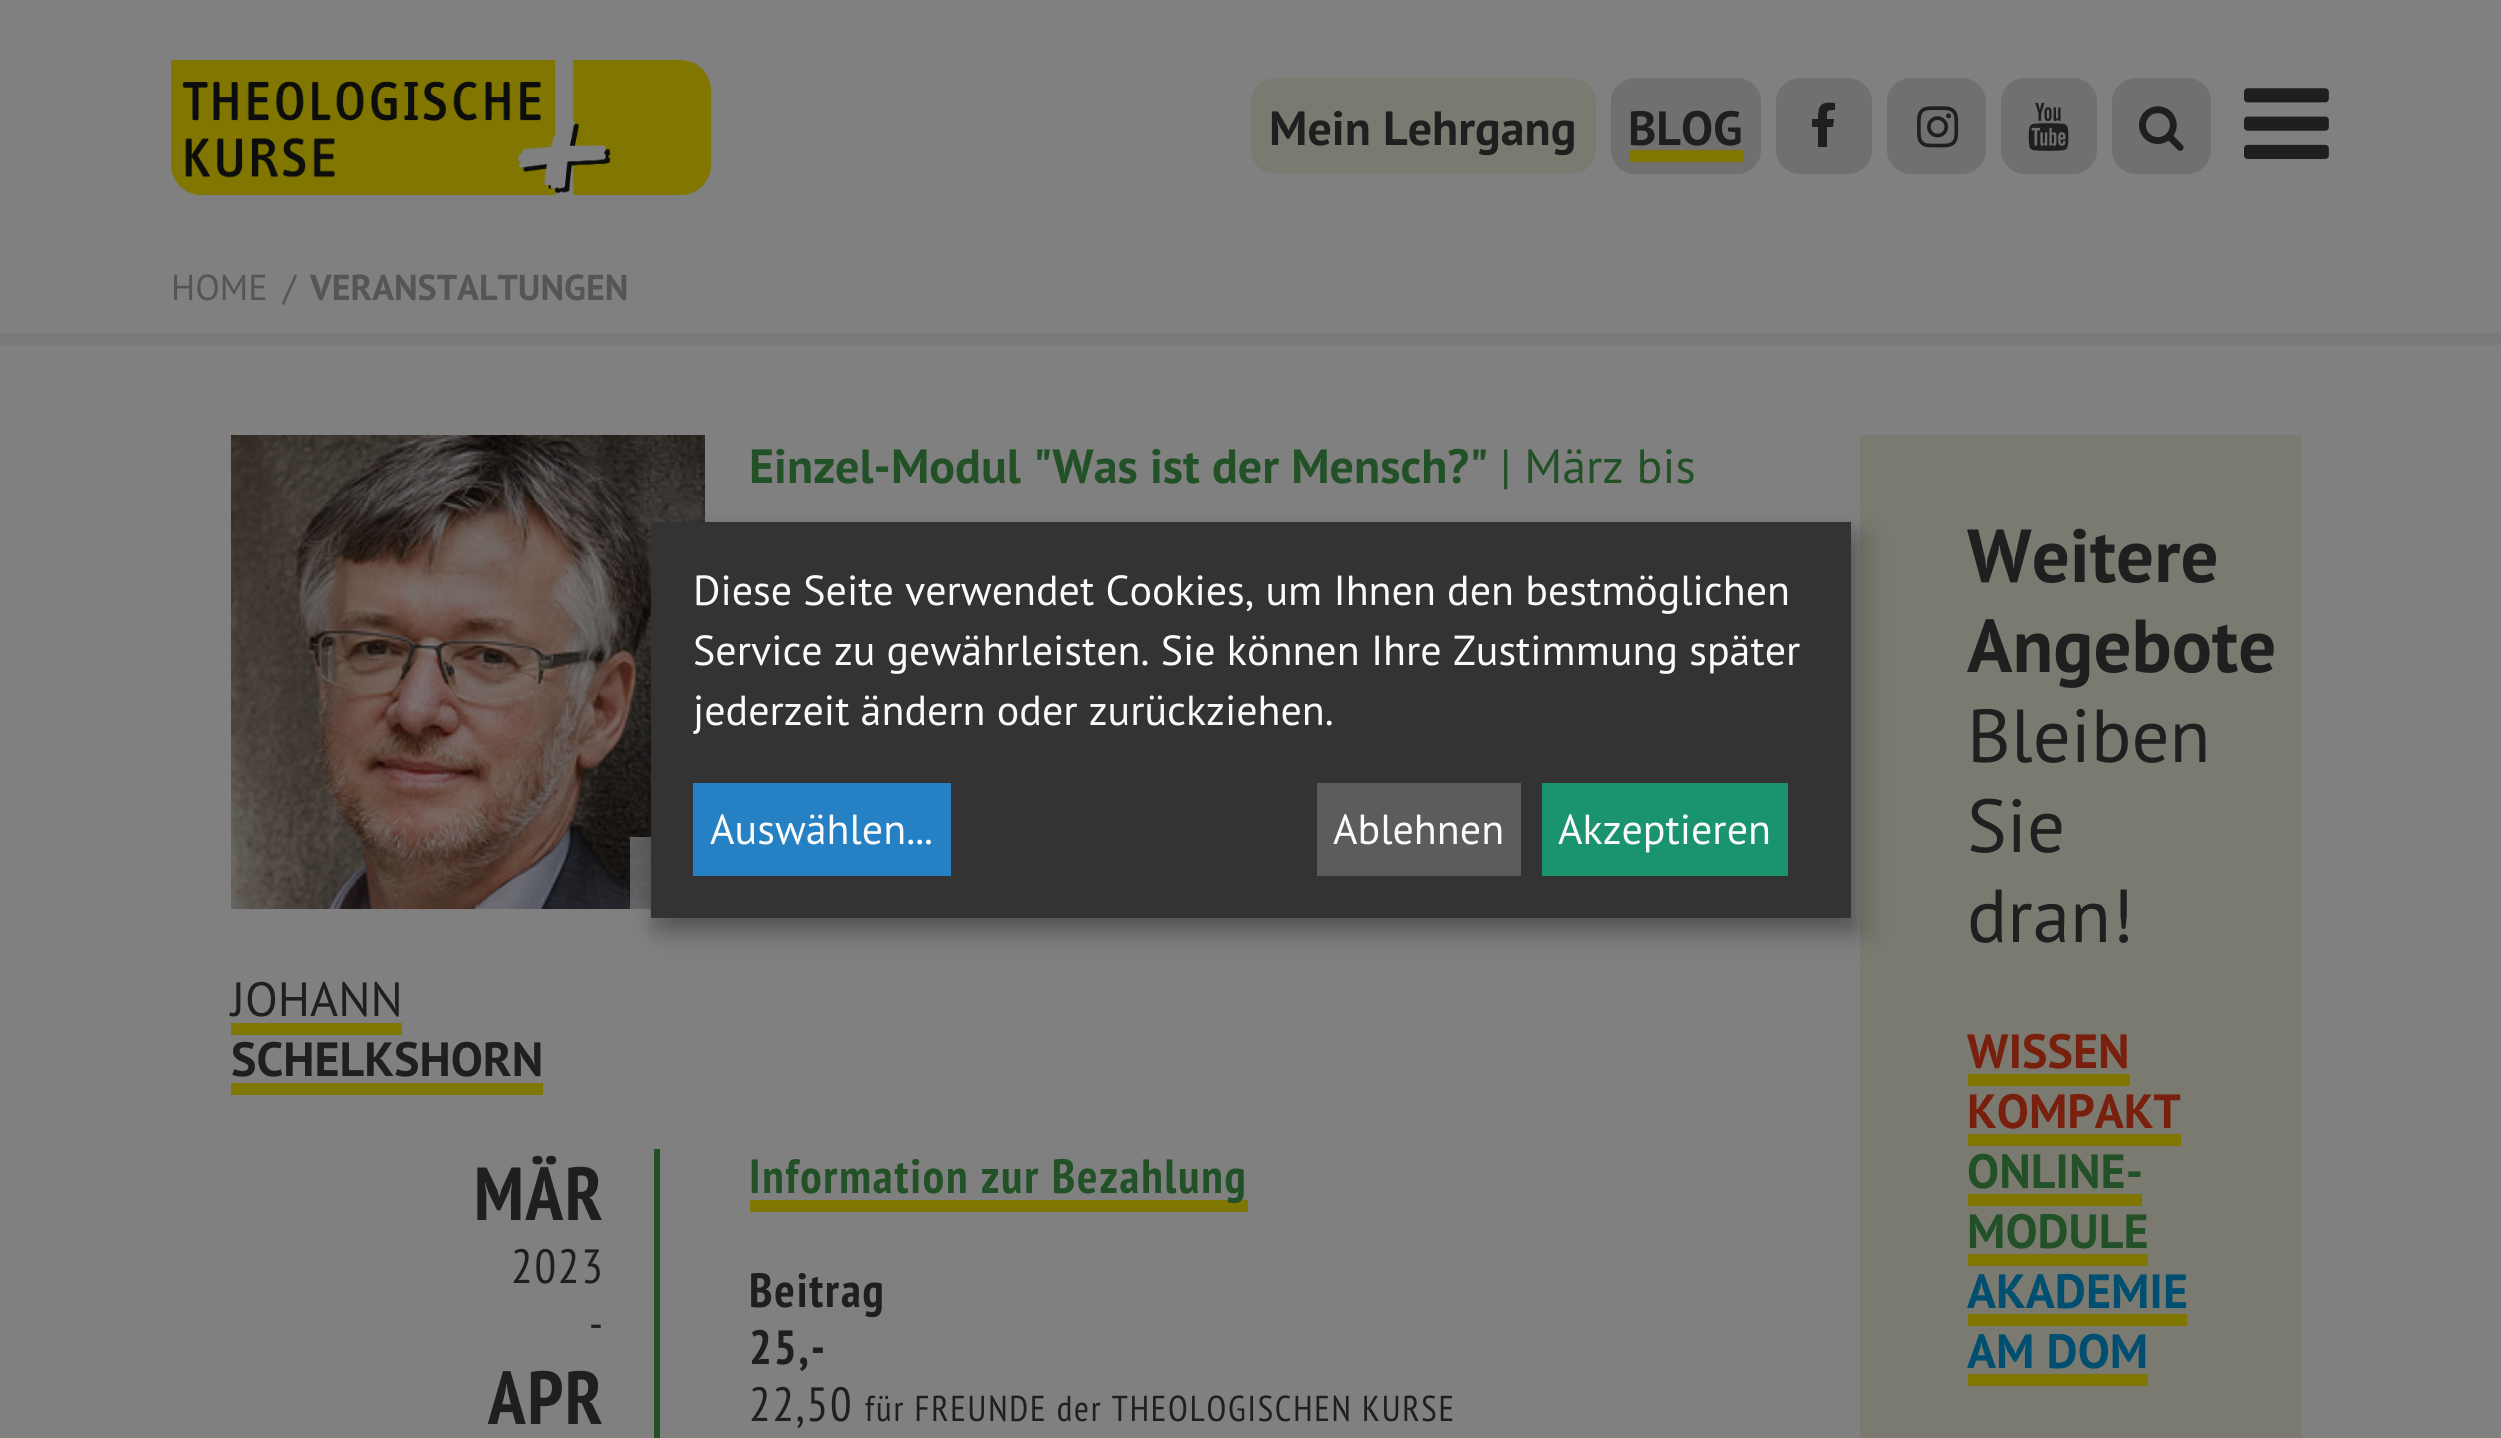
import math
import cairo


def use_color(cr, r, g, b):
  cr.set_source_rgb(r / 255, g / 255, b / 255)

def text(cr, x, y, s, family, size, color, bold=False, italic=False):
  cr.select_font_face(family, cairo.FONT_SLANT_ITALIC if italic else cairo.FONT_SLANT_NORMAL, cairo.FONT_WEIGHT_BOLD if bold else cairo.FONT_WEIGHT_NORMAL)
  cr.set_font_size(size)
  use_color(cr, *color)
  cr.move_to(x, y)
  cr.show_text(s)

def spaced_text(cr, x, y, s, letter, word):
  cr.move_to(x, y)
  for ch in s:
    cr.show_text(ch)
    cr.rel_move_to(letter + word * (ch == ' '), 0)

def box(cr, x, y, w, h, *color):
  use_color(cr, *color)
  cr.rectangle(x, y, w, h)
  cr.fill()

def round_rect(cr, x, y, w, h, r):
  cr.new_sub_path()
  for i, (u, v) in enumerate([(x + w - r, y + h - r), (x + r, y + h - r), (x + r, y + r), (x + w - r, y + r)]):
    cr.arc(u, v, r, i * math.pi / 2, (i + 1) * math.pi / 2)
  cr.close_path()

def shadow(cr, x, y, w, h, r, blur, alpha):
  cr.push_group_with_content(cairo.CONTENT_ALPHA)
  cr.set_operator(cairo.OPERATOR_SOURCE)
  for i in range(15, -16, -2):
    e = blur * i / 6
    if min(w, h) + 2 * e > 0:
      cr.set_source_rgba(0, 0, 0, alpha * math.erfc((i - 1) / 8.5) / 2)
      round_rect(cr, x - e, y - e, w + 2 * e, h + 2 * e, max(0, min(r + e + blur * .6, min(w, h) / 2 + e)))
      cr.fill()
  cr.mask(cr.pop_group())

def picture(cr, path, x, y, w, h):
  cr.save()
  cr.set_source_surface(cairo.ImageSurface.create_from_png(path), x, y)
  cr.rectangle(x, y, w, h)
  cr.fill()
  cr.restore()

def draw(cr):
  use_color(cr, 128, 128, 128)
  cr.paint()
  picture(cr, "img_01.png", 171, 60, 540, 135)
  use_color(cr, 123, 122, 113)
  round_rect(cr, 1251, 78, 345, 96, 24)
  cr.fill()
  use_color(cr, 112, 112, 112)
  round_rect(cr, 1611, 78, 150, 96, 24)
  cr.fill()
  box(cr, 1629, 150, 114, 12, 127, 119, 1)
  use_color(cr, 112, 112, 112)
  round_rect(cr, 1776, 78, 96, 96, 24)
  cr.fill()
  use_color(cr, 31, 31, 32)
  cr.new_path()
  cr.move_to(1835, 103)
  cr.line_to(1835, 110)
  cr.curve_to(1826, 110, 1827, 111, 1827, 119)
  cr.line_to(1834, 119)
  cr.line_to(1833, 127)
  cr.line_to(1827, 127)
  cr.line_to(1827, 147)
  cr.line_to(1818, 147)
  cr.line_to(1818, 127)
  cr.line_to(1812, 127)
  cr.line_to(1812, 119)
  cr.line_to(1818, 119)
  cr.curve_to(1818, 106, 1820, 101, 1835, 103)
  cr.close_path()
  cr.fill()
  use_color(cr, 112, 112, 112)
  round_rect(cr, 1887, 78, 99, 96, 24)
  cr.fill()
  picture(cr, "img_02.png", 1917, 106, 42, 42)
  round_rect(cr, 2001, 78, 96, 96, 24)
  cr.fill()
  picture(cr, "img_03.png", 2028, 102, 41, 49)
  round_rect(cr, 2112, 78, 99, 96, 24)
  cr.fill()
  picture(cr, "img_04.png", 2139, 106, 45, 45)
  picture(cr, "img_05.png", 2244, 88, 85, 71)
  box(cr, 0, 333, 2501, 12, 122, 122, 122)
  picture(cr, "img_06.png", 231, 435, 474, 474)
  cr.set_source_rgba(0.502, 0.502, 0.502, 0.7)
  cr.rectangle(630, 837, 21, 72)
  cr.fill()
  box(cr, 231, 1023, 171, 12, 127, 119, 1)
  box(cr, 231, 1083, 312, 12, 127, 119, 1)
  box(cr, 654, 1149, 6, 289, 35, 81, 39)
  box(cr, 750, 1200, 498, 12, 127, 119, 1)
  box(cr, 1860, 435, 441, 1003, 123, 122, 113)
  box(cr, 1968, 1074, 162, 12, 127, 119, 1)
  box(cr, 1968, 1134, 213, 12, 127, 119, 1)
  box(cr, 1968, 1194, 174, 12, 127, 119, 1)
  box(cr, 1968, 1254, 180, 12, 127, 119, 1)
  box(cr, 1968, 1314, 219, 12, 127, 119, 1)
  box(cr, 1968, 1374, 180, 12, 127, 119, 1)
  use_color(cr, 0, 0, 0)
  shadow(cr, 666, 537, 1200, 396, 0, 15, 0.19)
  shadow(cr, 651, 534, 1200, 396, 0, 9, 0.2)
  box(cr, 651, 522, 1200, 396, 51, 51, 51)
  box(cr, 693, 783, 258, 93, 37, 129, 196)
  box(cr, 1317, 783, 204, 93, 92, 92, 92)
  box(cr, 1542, 783, 246, 93, 26, 147, 111)
  text(cr, 1269, 145, "Mein Lehrgang", "PT Sans", 48, (31, 31, 32), bold=True)
  text(cr, 1628, 145, "BLOG", "PT Sans", 48, (31, 31, 32), bold=True)
  text(cr, 171, 300, "HOME", "PT Sans", 36, (85, 85, 85))
  text(cr, 283, 300, "/", "PT Sans", 36, (85, 85, 85))
  text(cr, 310, 300, "VERANSTALTUNGEN", "PT Sans", 36, (85, 85, 85), bold=True)
  text(cr, 749, 483, "Einzel-Modul \"Was ist der Mensch?\"", "PT Sans", 48, (35, 81, 39), bold=True)
  text(cr, 1500, 483, "| März bis", "PT Sans", 48, (35, 81, 39))
  text(cr, 231, 1016, "JOHANN", "PT Sans", 48, (31, 31, 32))
  text(cr, 231, 1076, "SCHELKSHORN", "PT Sans", 48, (31, 31, 32), bold=True)
  cr.select_font_face("PT Sans Narrow", cairo.FONT_SLANT_NORMAL, cairo.FONT_WEIGHT_BOLD)
  cr.set_font_size(75)
  spaced_text(cr, 474, 1220, "MÄR", 1.8, 0)
  cr.select_font_face("PT Sans Narrow")
  cr.set_font_size(48)
  spaced_text(cr, 511, 1283, "2023", 1.8, 0)
  spaced_text(cr, 589, 1340, "-", 1.8, 0)
  cr.select_font_face("PT Sans Narrow", cairo.FONT_SLANT_NORMAL, cairo.FONT_WEIGHT_BOLD)
  cr.set_font_size(75)
  spaced_text(cr, 488, 1424, "APR", 1.8, 0)
  cr.set_font_size(48)
  use_color(cr, 35, 81, 39)
  spaced_text(cr, 749, 1193, "Information zur Bezahlung", 1.8, 0)
  use_color(cr, 31, 31, 32)
  spaced_text(cr, 749, 1307, "Beitrag", 1.8, 0)
  spaced_text(cr, 749, 1364, "25,-", 1.8, 0)
  cr.select_font_face("PT Sans Narrow")
  spaced_text(cr, 749, 1421, "22,50", 1.8, 0)
  cr.set_font_size(36)
  spaced_text(cr, 865, 1421, "für FREUNDE der THEOLOGISCHEN KURSE", 1.8, 0)
  text(cr, 1967, 582, "Weitere", "PT Sans", 75, (31, 31, 32), bold=True)
  text(cr, 1967, 672, "Angebote", "PT Sans", 75, (31, 31, 32), bold=True)
  text(cr, 1967, 762, "Bleiben", "PT Sans", 75, (31, 31, 32))
  text(cr, 1967, 852, "Sie", "PT Sans", 75, (31, 31, 32))
  text(cr, 1967, 942, "dran!", "PT Sans", 75, (31, 31, 32))
  text(cr, 1967, 1068, "WISSEN", "PT Sans", 48, (120, 32, 13), bold=True)
  text(cr, 1967, 1128, "KOMPAKT", "PT Sans", 48, (120, 32, 13), bold=True)
  text(cr, 1967, 1188, "ONLINE-", "PT Sans", 48, (35, 81, 39), bold=True)
  text(cr, 1967, 1248, "MODULE", "PT Sans", 48, (35, 81, 39), bold=True)
  text(cr, 1967, 1308, "AKADEMIE", "PT Sans", 48, (0, 79, 112), bold=True)
  text(cr, 1967, 1368, "AM DOM", "PT Sans", 48, (0, 79, 112), bold=True)
  text(cr, 693, 605, "Diese Seite verwendet Cookies, um Ihnen den bestmöglichen", "PT Sans", 42, (250, 250, 250))
  text(cr, 693, 665, "Service zu gewährleisten. Sie können Ihre Zustimmung später", "PT Sans", 42, (250, 250, 250))
  text(cr, 693, 725, "jederzeit ändern oder zurückziehen.", "PT Sans", 42, (250, 250, 250))
  text(cr, 710, 844, "Auswählen...", "PT Sans", 42, (250, 250, 250))
  text(cr, 1333, 844, "Ablehnen", "PT Sans", 42, (250, 250, 250))
  text(cr, 1558, 844, "Akzeptieren", "PT Sans", 42, (250, 250, 250))


surface = cairo.ImageSurface(cairo.FORMAT_RGB24, 2501, 1438)
cr = cairo.Context(surface)
options = cairo.FontOptions()
options.set_hint_metrics(cairo.HINT_METRICS_OFF)
options.set_hint_style(cairo.HINT_STYLE_NONE)
cr.set_font_options(options)
cr.set_miter_limit(4)
draw(cr)
surface.write_to_png("out.png")
